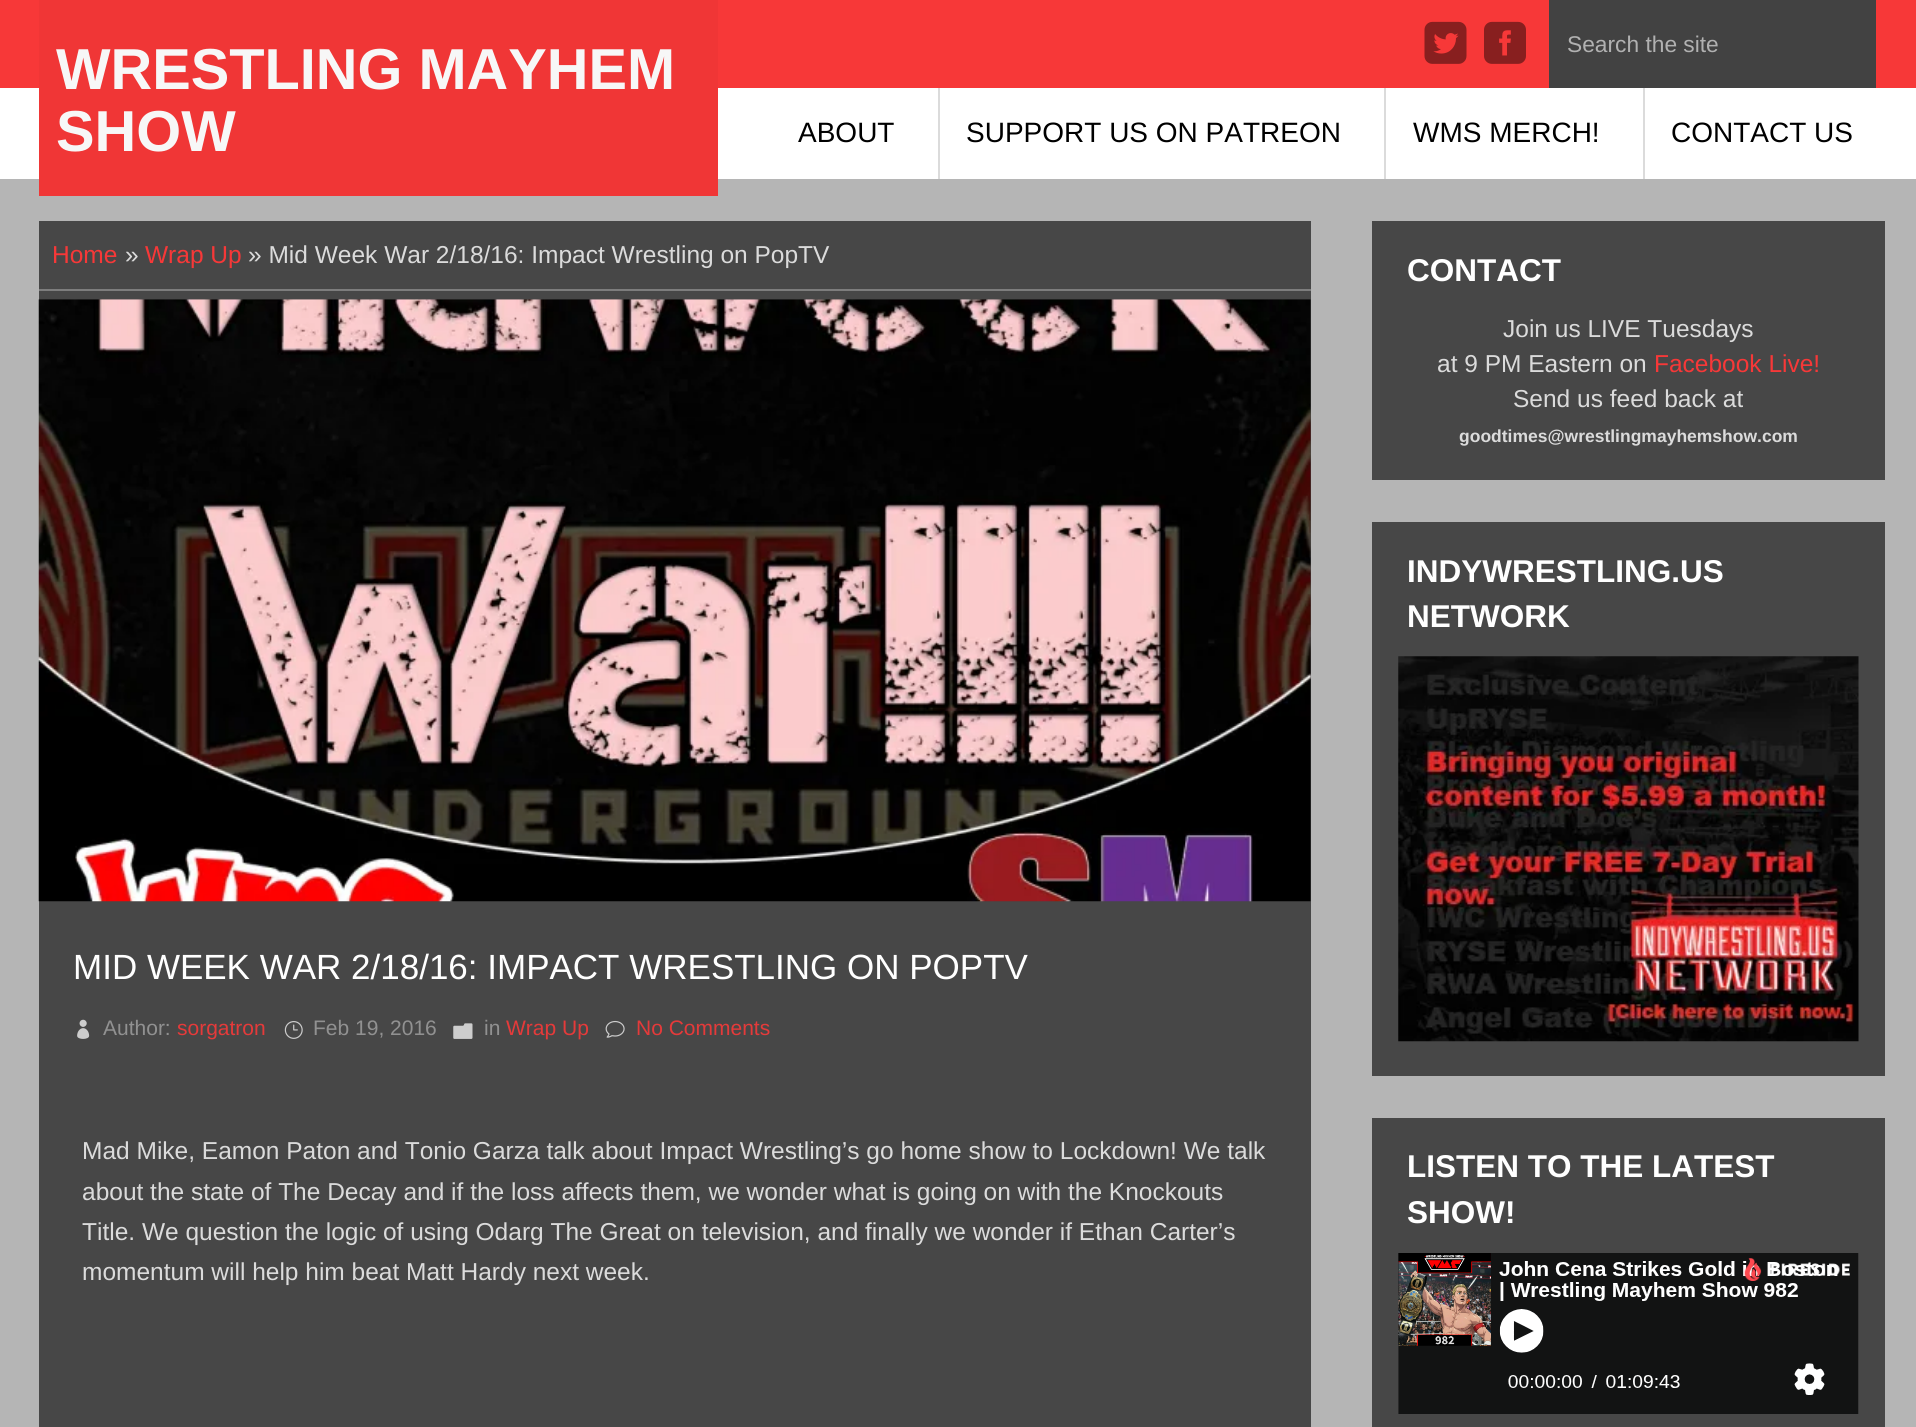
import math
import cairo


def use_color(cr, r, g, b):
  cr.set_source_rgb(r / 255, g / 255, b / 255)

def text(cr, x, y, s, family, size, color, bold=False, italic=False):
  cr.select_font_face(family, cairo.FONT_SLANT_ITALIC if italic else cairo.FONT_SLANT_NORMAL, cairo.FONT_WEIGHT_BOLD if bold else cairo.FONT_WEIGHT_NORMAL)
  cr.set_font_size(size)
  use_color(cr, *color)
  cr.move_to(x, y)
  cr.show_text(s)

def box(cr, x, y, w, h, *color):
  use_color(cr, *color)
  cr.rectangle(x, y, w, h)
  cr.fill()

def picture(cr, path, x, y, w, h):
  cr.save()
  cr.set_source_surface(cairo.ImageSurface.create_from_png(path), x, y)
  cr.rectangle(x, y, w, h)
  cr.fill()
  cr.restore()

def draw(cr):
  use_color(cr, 181, 181, 181)
  cr.paint()
  box(cr, 0, 88, 1916, 91, 255, 255, 255)
  box(cr, 0, 0, 1916, 88, 247, 56, 56)
  picture(cr, "img_01.png", 1424, 21, 43, 43)
  picture(cr, "img_02.png", 1484, 21, 42, 43)
  box(cr, 1549, 0, 327, 88, 66, 66, 66)
  box(cr, 938, 88, 2, 91, 219, 219, 219)
  box(cr, 1384, 88, 2, 91, 219, 219, 219)
  box(cr, 1643, 88, 2, 91, 219, 219, 219)
  box(cr, 39, 0, 679, 196, 240, 54, 54)
  box(cr, 39, 221, 1272, 1206, 71, 71, 71)
  box(cr, 39, 289, 1272, 2, 125, 125, 125)
  picture(cr, "img_03.png", 38, 299, 1273, 603)
  picture(cr, "img_04.png", 77, 1019, 13, 20)
  picture(cr, "img_05.png", 284, 1021, 19, 18)
  picture(cr, "img_06.png", 453, 1023, 20, 16)
  picture(cr, "img_07.png", 605, 1020, 20, 18)
  box(cr, 1372, 221, 513, 259, 71, 71, 71)
  box(cr, 1372, 522, 513, 554, 71, 71, 71)
  picture(cr, "img_08.png", 1398, 656, 461, 386)
  box(cr, 1372, 1118, 513, 309, 71, 71, 71)
  picture(cr, "img_09.png", 1398, 1253, 461, 161)
  text(cr, 1567, 52, "Search the site", "Liberation Sans", 22.75, (177, 177, 177))
  text(cr, 798, 142, "ABOUT", "Liberation Sans", 28, (0, 0, 0))
  text(cr, 966, 142, "SUPPORT US ON PATREON", "Liberation Sans", 28, (0, 0, 0))
  text(cr, 1413, 142, "WMS MERCH!", "Liberation Sans", 28, (0, 0, 0))
  text(cr, 1671, 142, "CONTACT US", "Liberation Sans", 28, (0, 0, 0))
  text(cr, 56, 89, "WRESTLING MAYHEM", "Liberation Sans", 57.75, (247, 247, 247), bold=True)
  text(cr, 56, 151, "SHOW", "Liberation Sans", 57.75, (247, 247, 247), bold=True)
  text(cr, 52, 263, "Home", "Liberation Sans", 24.5, (247, 56, 56))
  text(cr, 125, 263, "»", "Liberation Sans", 24.5, (219, 219, 219))
  text(cr, 145, 263, "Wrap Up", "Liberation Sans", 24.5, (247, 56, 56))
  text(cr, 248, 263, "» Mid Week War 2/18/16: Impact Wrestling on PopTV", "Liberation Sans", 24.5, (219, 219, 219))
  text(cr, 73, 979, "MID WEEK WAR 2/18/16: IMPACT WRESTLING ON POPTV", "Liberation Sans", 35, (255, 255, 255))
  text(cr, 103, 1035, "Author:", "Liberation Sans", 21, (145, 145, 145))
  text(cr, 177, 1035, "sorgatron", "Liberation Sans", 21, (229, 58, 58))
  text(cr, 313, 1035, "Feb 19, 2016", "Liberation Sans", 21, (145, 145, 145))
  text(cr, 484, 1035, "in", "Liberation Sans", 21, (145, 145, 145))
  text(cr, 506, 1035, "Wrap Up", "Liberation Sans", 21, (229, 58, 58))
  text(cr, 636, 1035, "No Comments", "Liberation Sans", 21, (229, 58, 58))
  text(cr, 82, 1159, "Mad Mike, Eamon Paton and Tonio Garza talk about Impact Wrestling’s go home show to Lockdown! We talk", "Liberation Sans", 24.5, (219, 219, 219))
  text(cr, 82, 1200, "about the state of The Decay and if the loss affects them, we wonder what is going on with the Knockouts", "Liberation Sans", 24.5, (219, 219, 219))
  text(cr, 82, 1240, "Title. We question the logic of using Odarg The Great on television, and finally we wonder if Ethan Carter’s", "Liberation Sans", 24.5, (219, 219, 219))
  text(cr, 82, 1280, "momentum will help him beat Matt Hardy next week.", "Liberation Sans", 24.5, (219, 219, 219))
  text(cr, 1407, 281, "CONTACT", "Liberation Sans", 31.5, (255, 255, 255), bold=True)
  text(cr, 1503, 337, "Join us LIVE Tuesdays", "Liberation Sans", 24.5, (219, 219, 219))
  text(cr, 1437, 372, "at 9 PM Eastern on", "Liberation Sans", 24.5, (219, 219, 219))
  text(cr, 1654, 372, "Facebook Live!", "Liberation Sans", 24.5, (247, 56, 56))
  text(cr, 1513, 407, "Send us feed back at", "Liberation Sans", 24.5, (219, 219, 219))
  text(cr, 1459, 442, "goodtimes@wrestlingmayhemshow.com", "Liberation Sans", 17.5, (219, 219, 219), bold=True)
  text(cr, 1407, 582, "INDYWRESTLING.US", "Liberation Sans", 31.5, (255, 255, 255), bold=True)
  text(cr, 1407, 627, "NETWORK", "Liberation Sans", 31.5, (255, 255, 255), bold=True)
  text(cr, 1407, 1177, "LISTEN TO THE LATEST", "Liberation Sans", 31.5, (255, 255, 255), bold=True)
  text(cr, 1407, 1223, "SHOW!", "Liberation Sans", 31.5, (255, 255, 255), bold=True)


surface = cairo.ImageSurface(cairo.FORMAT_RGB24, 1916, 1427)
cr = cairo.Context(surface)
options = cairo.FontOptions()
options.set_hint_metrics(cairo.HINT_METRICS_OFF)
options.set_hint_style(cairo.HINT_STYLE_NONE)
cr.set_font_options(options)
cr.set_miter_limit(4)
draw(cr)
surface.write_to_png("out.png")
